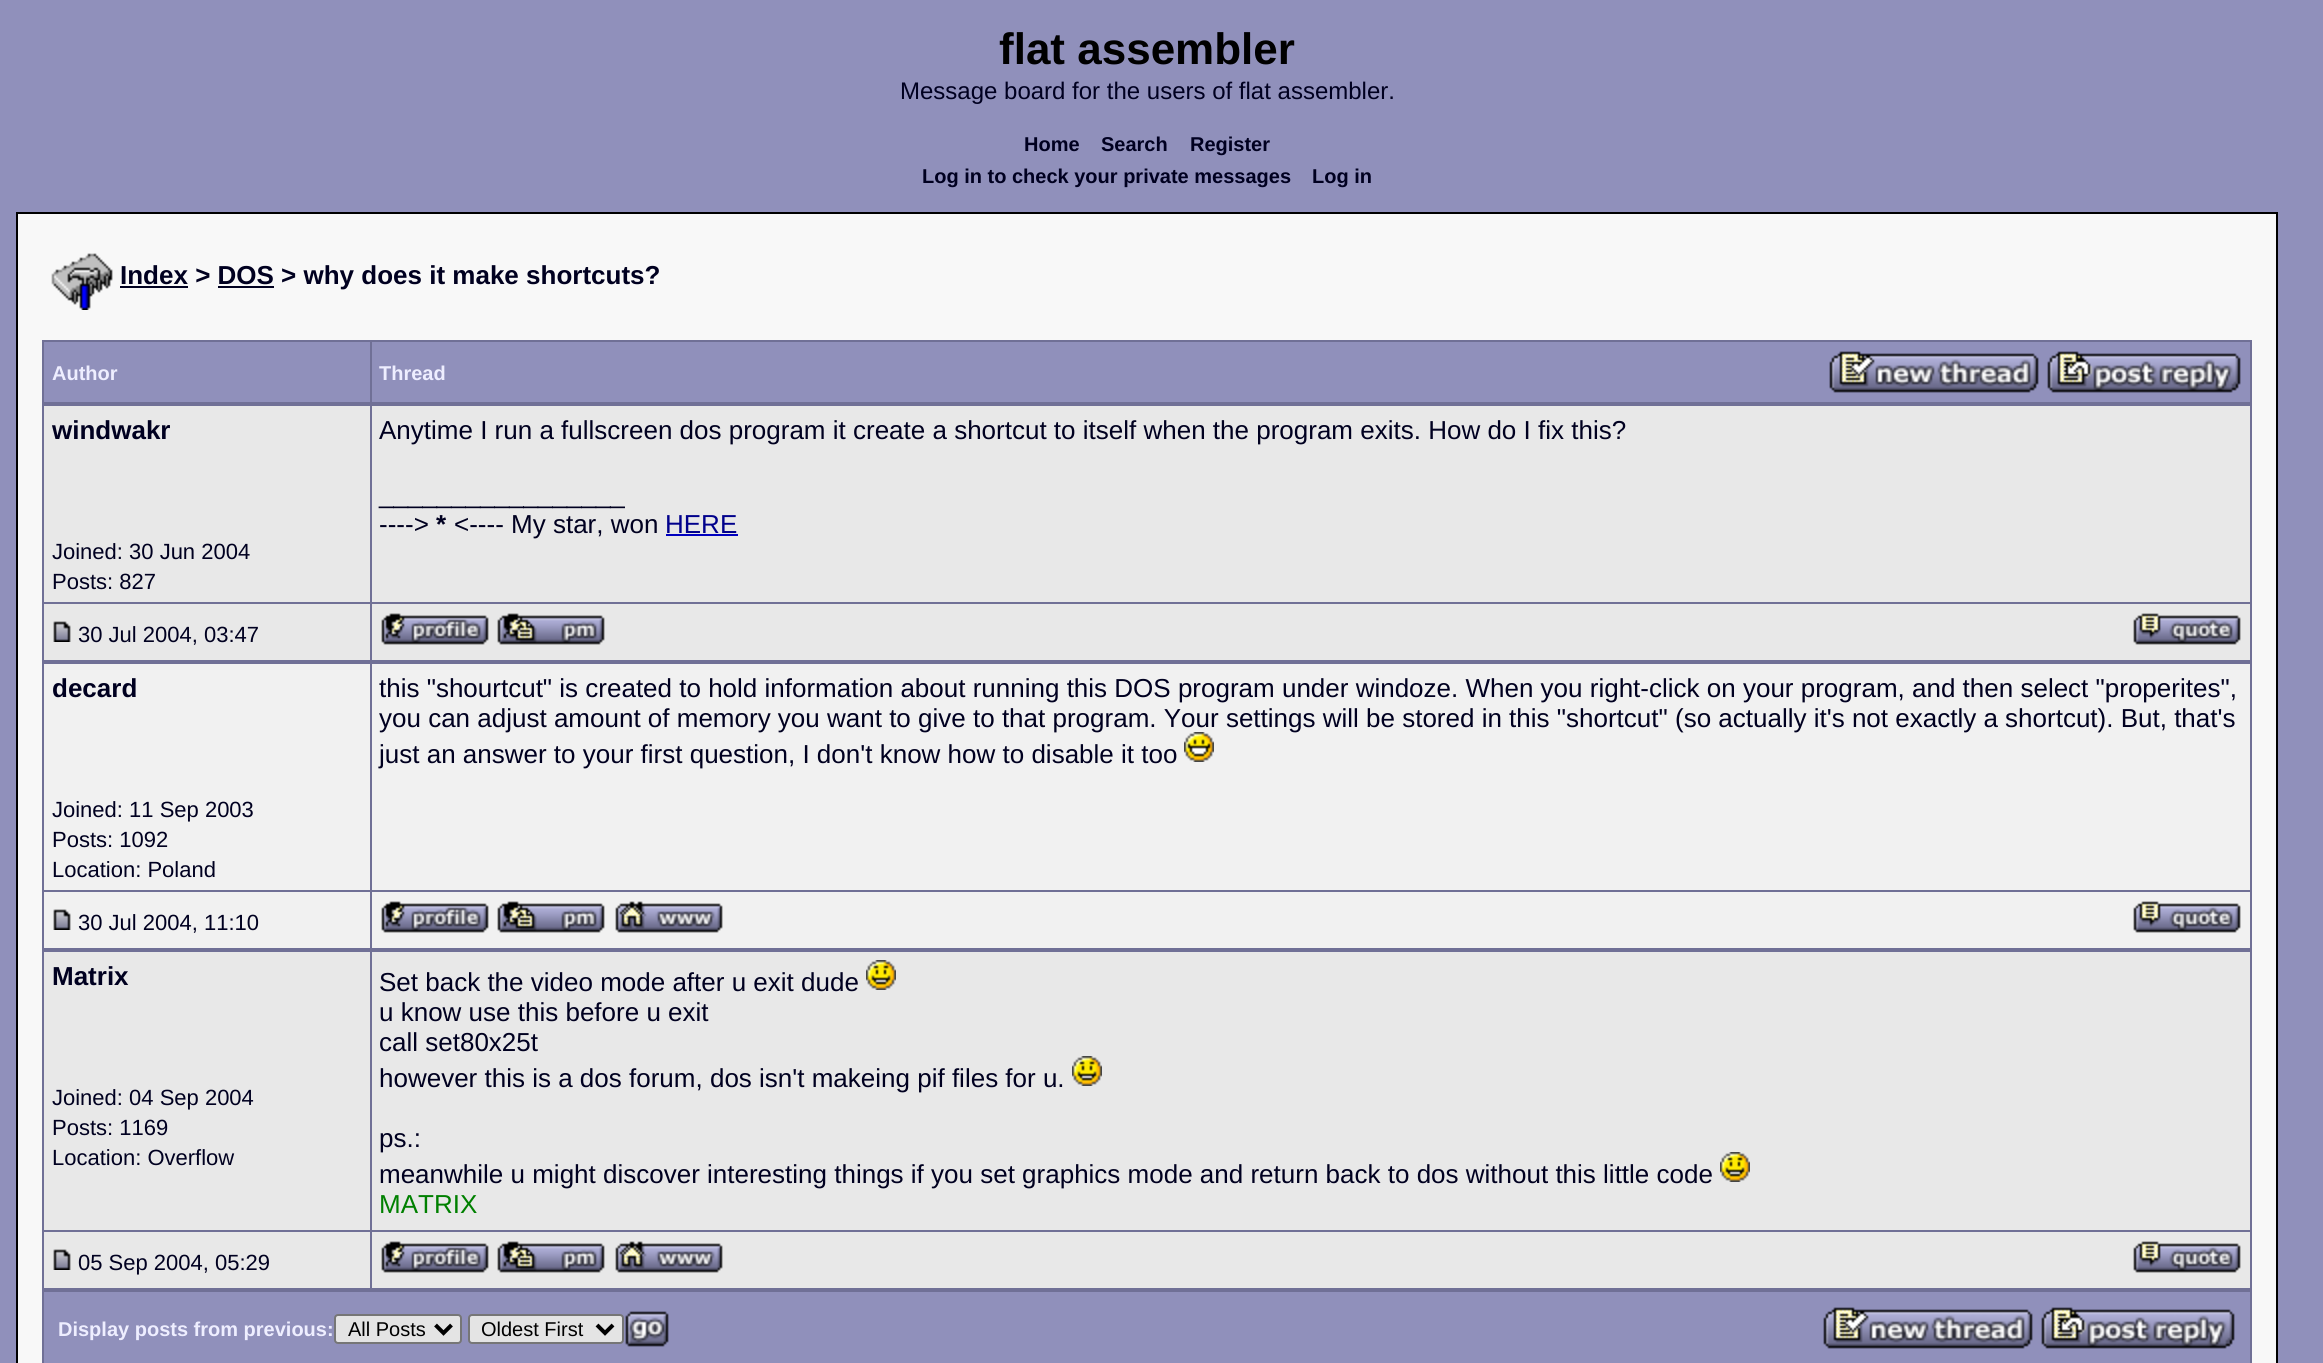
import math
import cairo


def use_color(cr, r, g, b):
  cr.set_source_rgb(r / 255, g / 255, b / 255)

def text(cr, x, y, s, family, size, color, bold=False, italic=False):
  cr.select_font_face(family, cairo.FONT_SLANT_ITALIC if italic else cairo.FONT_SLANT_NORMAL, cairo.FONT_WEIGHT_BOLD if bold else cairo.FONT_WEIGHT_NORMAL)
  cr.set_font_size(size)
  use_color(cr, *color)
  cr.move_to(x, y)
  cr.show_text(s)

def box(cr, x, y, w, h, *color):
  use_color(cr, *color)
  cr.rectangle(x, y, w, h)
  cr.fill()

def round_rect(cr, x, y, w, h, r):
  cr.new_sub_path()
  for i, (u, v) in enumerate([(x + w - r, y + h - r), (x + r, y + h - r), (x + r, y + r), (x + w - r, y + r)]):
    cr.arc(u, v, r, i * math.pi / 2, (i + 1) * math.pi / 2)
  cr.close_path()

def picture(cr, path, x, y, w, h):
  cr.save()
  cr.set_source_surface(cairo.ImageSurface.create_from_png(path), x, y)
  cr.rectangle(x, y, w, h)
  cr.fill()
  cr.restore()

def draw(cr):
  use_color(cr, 144, 144, 187)
  cr.paint()
  use_color(cr, 248, 248, 248)
  cr.rectangle(17, 213, 2260, 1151)
  cr.fill_preserve()
  use_color(cr, 0, 0, 0)
  cr.stroke()
  picture(cr, "img_01.png", 51, 253, 62, 57)
  box(cr, 120, 286, 68, 2, 0, 0, 32)
  box(cr, 218, 286, 56, 2, 0, 0, 32)
  box(cr, 42, 340, 2210, 2, 112, 112, 150)
  box(cr, 2250, 340, 2, 64, 112, 112, 150)
  box(cr, 42, 402, 2210, 4, 112, 112, 150)
  box(cr, 42, 340, 2, 64, 112, 112, 150)
  box(cr, 44, 342, 326, 60, 144, 144, 187)
  box(cr, 372, 342, 1878, 60, 144, 144, 187)
  box(cr, 370, 340, 2, 64, 112, 112, 150)
  picture(cr, "img_02.png", 1829, 351, 210, 42)
  picture(cr, "img_03.png", 2047, 351, 194, 42)
  box(cr, 2250, 404, 2, 258, 112, 112, 150)
  box(cr, 42, 660, 2210, 4, 112, 112, 150)
  box(cr, 42, 404, 2, 258, 112, 112, 150)
  box(cr, 44, 406, 326, 196, 232, 232, 232)
  box(cr, 372, 406, 1878, 196, 232, 232, 232)
  box(cr, 666, 534, 72, 2, 0, 0, 192)
  box(cr, 42, 602, 2210, 2, 112, 112, 150)
  box(cr, 44, 604, 326, 56, 232, 232, 232)
  picture(cr, "img_04.png", 53, 621, 18, 21)
  box(cr, 372, 604, 1878, 56, 232, 232, 232)
  box(cr, 370, 404, 2, 258, 112, 112, 150)
  picture(cr, "img_05.png", 381, 613, 108, 32)
  picture(cr, "img_06.png", 497, 613, 108, 32)
  picture(cr, "img_07.png", 2133, 613, 108, 32)
  box(cr, 2250, 662, 2, 288, 112, 112, 150)
  box(cr, 42, 948, 2210, 4, 112, 112, 150)
  box(cr, 42, 662, 2, 288, 112, 112, 150)
  box(cr, 44, 664, 326, 226, 241, 241, 241)
  box(cr, 372, 664, 1878, 226, 241, 241, 241)
  box(cr, 42, 890, 2210, 2, 112, 112, 150)
  box(cr, 44, 892, 326, 56, 241, 241, 241)
  picture(cr, "img_09.png", 53, 909, 18, 21)
  box(cr, 372, 892, 1878, 56, 241, 241, 241)
  box(cr, 370, 662, 2, 288, 112, 112, 150)
  picture(cr, "img_10.png", 381, 901, 108, 32)
  picture(cr, "img_11.png", 497, 901, 108, 32)
  picture(cr, "img_12.png", 615, 901, 108, 32)
  picture(cr, "img_13.png", 2133, 901, 108, 32)
  box(cr, 2250, 950, 2, 340, 112, 112, 150)
  box(cr, 42, 1288, 2210, 4, 112, 112, 150)
  box(cr, 42, 950, 2, 413, 112, 112, 150)
  box(cr, 44, 952, 326, 278, 232, 232, 232)
  box(cr, 372, 952, 1878, 278, 232, 232, 232)
  picture(cr, "img_14.png", 866, 960, 30, 30)
  picture(cr, "img_14.png", 1072, 1056, 30, 30)
  picture(cr, "img_14.png", 1720, 1152, 30, 30)
  box(cr, 42, 1230, 2210, 2, 112, 112, 150)
  box(cr, 44, 1232, 326, 56, 232, 232, 232)
  picture(cr, "img_04.png", 53, 1249, 18, 21)
  box(cr, 372, 1232, 1878, 56, 232, 232, 232)
  box(cr, 370, 950, 2, 340, 112, 112, 150)
  picture(cr, "img_05.png", 381, 1241, 108, 32)
  picture(cr, "img_06.png", 497, 1241, 108, 32)
  picture(cr, "img_15.png", 615, 1241, 108, 32)
  picture(cr, "img_07.png", 2133, 1241, 108, 32)
  box(cr, 2250, 1290, 2, 73, 112, 112, 150)
  box(cr, 44, 1292, 2206, 71, 144, 144, 187)
  use_color(cr, 228, 228, 228)
  round_rect(cr, 335, 1315, 126, 28, 3)
  cr.fill_preserve()
  use_color(cr, 118, 118, 118)
  cr.stroke()
  cr.new_path()
  cr.move_to(435.5, 1325)
  cr.line_to(443.5, 1333)
  cr.line_to(451.5, 1325)
  use_color(cr, 0, 0, 0)
  cr.set_line_width(4)
  cr.stroke()
  use_color(cr, 228, 228, 228)
  round_rect(cr, 469, 1315, 154, 28, 3)
  cr.fill_preserve()
  use_color(cr, 118, 118, 118)
  cr.set_line_width(2)
  cr.stroke()
  cr.new_path()
  cr.move_to(597, 1325)
  cr.line_to(605, 1333)
  cr.line_to(613, 1325)
  use_color(cr, 0, 0, 0)
  cr.set_line_width(4)
  cr.stroke()
  picture(cr, "img_16.png", 625, 1311, 44, 36)
  picture(cr, "img_02.png", 1823, 1307, 210, 42)
  picture(cr, "img_03.png", 2041, 1307, 194, 42)
  text(cr, 999, 64, "flat assembler", "Liberation Sans", 44, (0, 0, 0), bold=True)
  text(cr, 900, 99, "Message board for the users of flat assembler.", "Liberation Sans", 24, (0, 0, 32))
  text(cr, 1024, 151, "Home", "Liberation Sans", 20, (0, 0, 32), bold=True)
  text(cr, 1101, 151, "Search", "Liberation Sans", 20, (0, 0, 32), bold=True)
  text(cr, 1190, 151, "Register", "Liberation Sans", 20, (0, 0, 32), bold=True)
  text(cr, 922, 183, "Log in to check your private messages", "Liberation Sans", 20, (0, 0, 32), bold=True)
  text(cr, 1312, 183, "Log in", "Liberation Sans", 20, (0, 0, 32), bold=True)
  text(cr, 120, 284, "Index > DOS > why does it make shortcuts?", "Liberation Sans", 26, (0, 0, 32), bold=True)
  text(cr, 52, 380, "Author", "Liberation Sans", 20, (238, 238, 255), bold=True)
  text(cr, 379, 380, "Thread", "Liberation Sans", 20, (238, 238, 255), bold=True)
  text(cr, 52, 439, "windwakr", "Liberation Sans", 26, (0, 0, 32), bold=True)
  text(cr, 52, 559, "Joined: 30 Jun 2004", "Liberation Sans", 22, (0, 0, 32))
  text(cr, 52, 589, "Posts: 827", "Liberation Sans", 22, (0, 0, 32))
  text(cr, 379, 439, "Anytime I run a fullscreen dos program it create a shortcut to itself when the program exits. How do I fix this?", "Liberation Sans", 26, (0, 0, 32))
  text(cr, 379, 503, "_________________", "Liberation Sans", 26, (0, 0, 32))
  text(cr, 379, 533, "---->", "Liberation Sans", 26, (0, 0, 32))
  text(cr, 436, 533, "*", "Liberation Sans", 26, (0, 0, 32), bold=True)
  text(cr, 454, 533, "<---- My star, won", "Liberation Sans", 26, (0, 0, 32))
  text(cr, 665, 533, "HERE", "Liberation Sans", 26, (0, 0, 139))
  text(cr, 78, 642, "30 Jul 2004, 03:47", "Liberation Sans", 22, (0, 0, 32))
  text(cr, 52, 697, "decard", "Liberation Sans", 26, (0, 0, 32), bold=True)
  text(cr, 52, 817, "Joined: 11 Sep 2003", "Liberation Sans", 22, (0, 0, 32))
  text(cr, 52, 847, "Posts: 1092", "Liberation Sans", 22, (0, 0, 32))
  text(cr, 52, 877, "Location: Poland", "Liberation Sans", 22, (0, 0, 32))
  text(cr, 379, 697, "this \"shourtcut\" is created to hold information about running this DOS program under windoze. When you right-click on your program, and then select \"properites\",", "Liberation Sans", 26, (0, 0, 32))
  text(cr, 379, 727, "you can adjust amount of memory you want to give to that program. Your settings will be stored in this \"shortcut\" (so actually it's not exactly a shortcut). But, that's", "Liberation Sans", 26, (0, 0, 32))
  text(cr, 379, 763, "just an answer to your first question, I don't know how to disable it too", "Liberation Sans", 26, (0, 0, 32))
  picture(cr, "img_08.png", 1184, 732, 30, 30)
  text(cr, 78, 930, "30 Jul 2004, 11:10", "Liberation Sans", 22, (0, 0, 32))
  text(cr, 52, 985, "Matrix", "Liberation Sans", 26, (0, 0, 32), bold=True)
  text(cr, 52, 1105, "Joined: 04 Sep 2004", "Liberation Sans", 22, (0, 0, 32))
  text(cr, 52, 1135, "Posts: 1169", "Liberation Sans", 22, (0, 0, 32))
  text(cr, 52, 1165, "Location: Overflow", "Liberation Sans", 22, (0, 0, 32))
  text(cr, 379, 991, "Set back the video mode after u exit dude", "Liberation Sans", 26, (0, 0, 32))
  text(cr, 379, 1021, "u know use this before u exit", "Liberation Sans", 26, (0, 0, 32))
  text(cr, 379, 1051, "call set80x25t", "Liberation Sans", 26, (0, 0, 32))
  text(cr, 379, 1087, "however this is a dos forum, dos isn't makeing pif files for u.", "Liberation Sans", 26, (0, 0, 32))
  text(cr, 379, 1147, "ps.:", "Liberation Sans", 26, (0, 0, 32))
  text(cr, 379, 1183, "meanwhile u might discover interesting things if you set graphics mode and return back to dos without this little code", "Liberation Sans", 26, (0, 0, 32))
  text(cr, 379, 1213, "MATRIX", "Liberation Sans", 26, (0, 128, 0))
  text(cr, 78, 1270, "05 Sep 2004, 05:29", "Liberation Sans", 22, (0, 0, 32))
  text(cr, 58, 1336, "Display posts from previous:", "Liberation Sans", 20, (238, 238, 255), bold=True)
  text(cr, 348, 1336, "All Posts", "Liberation Sans", 20, (0, 0, 0))
  text(cr, 481, 1336, "Oldest First", "Liberation Sans", 20, (0, 0, 0))


surface = cairo.ImageSurface(cairo.FORMAT_RGB24, 2323, 1363)
cr = cairo.Context(surface)
options = cairo.FontOptions()
options.set_hint_metrics(cairo.HINT_METRICS_OFF)
options.set_hint_style(cairo.HINT_STYLE_NONE)
cr.set_font_options(options)
cr.set_miter_limit(4)
draw(cr)
surface.write_to_png("out.png")
